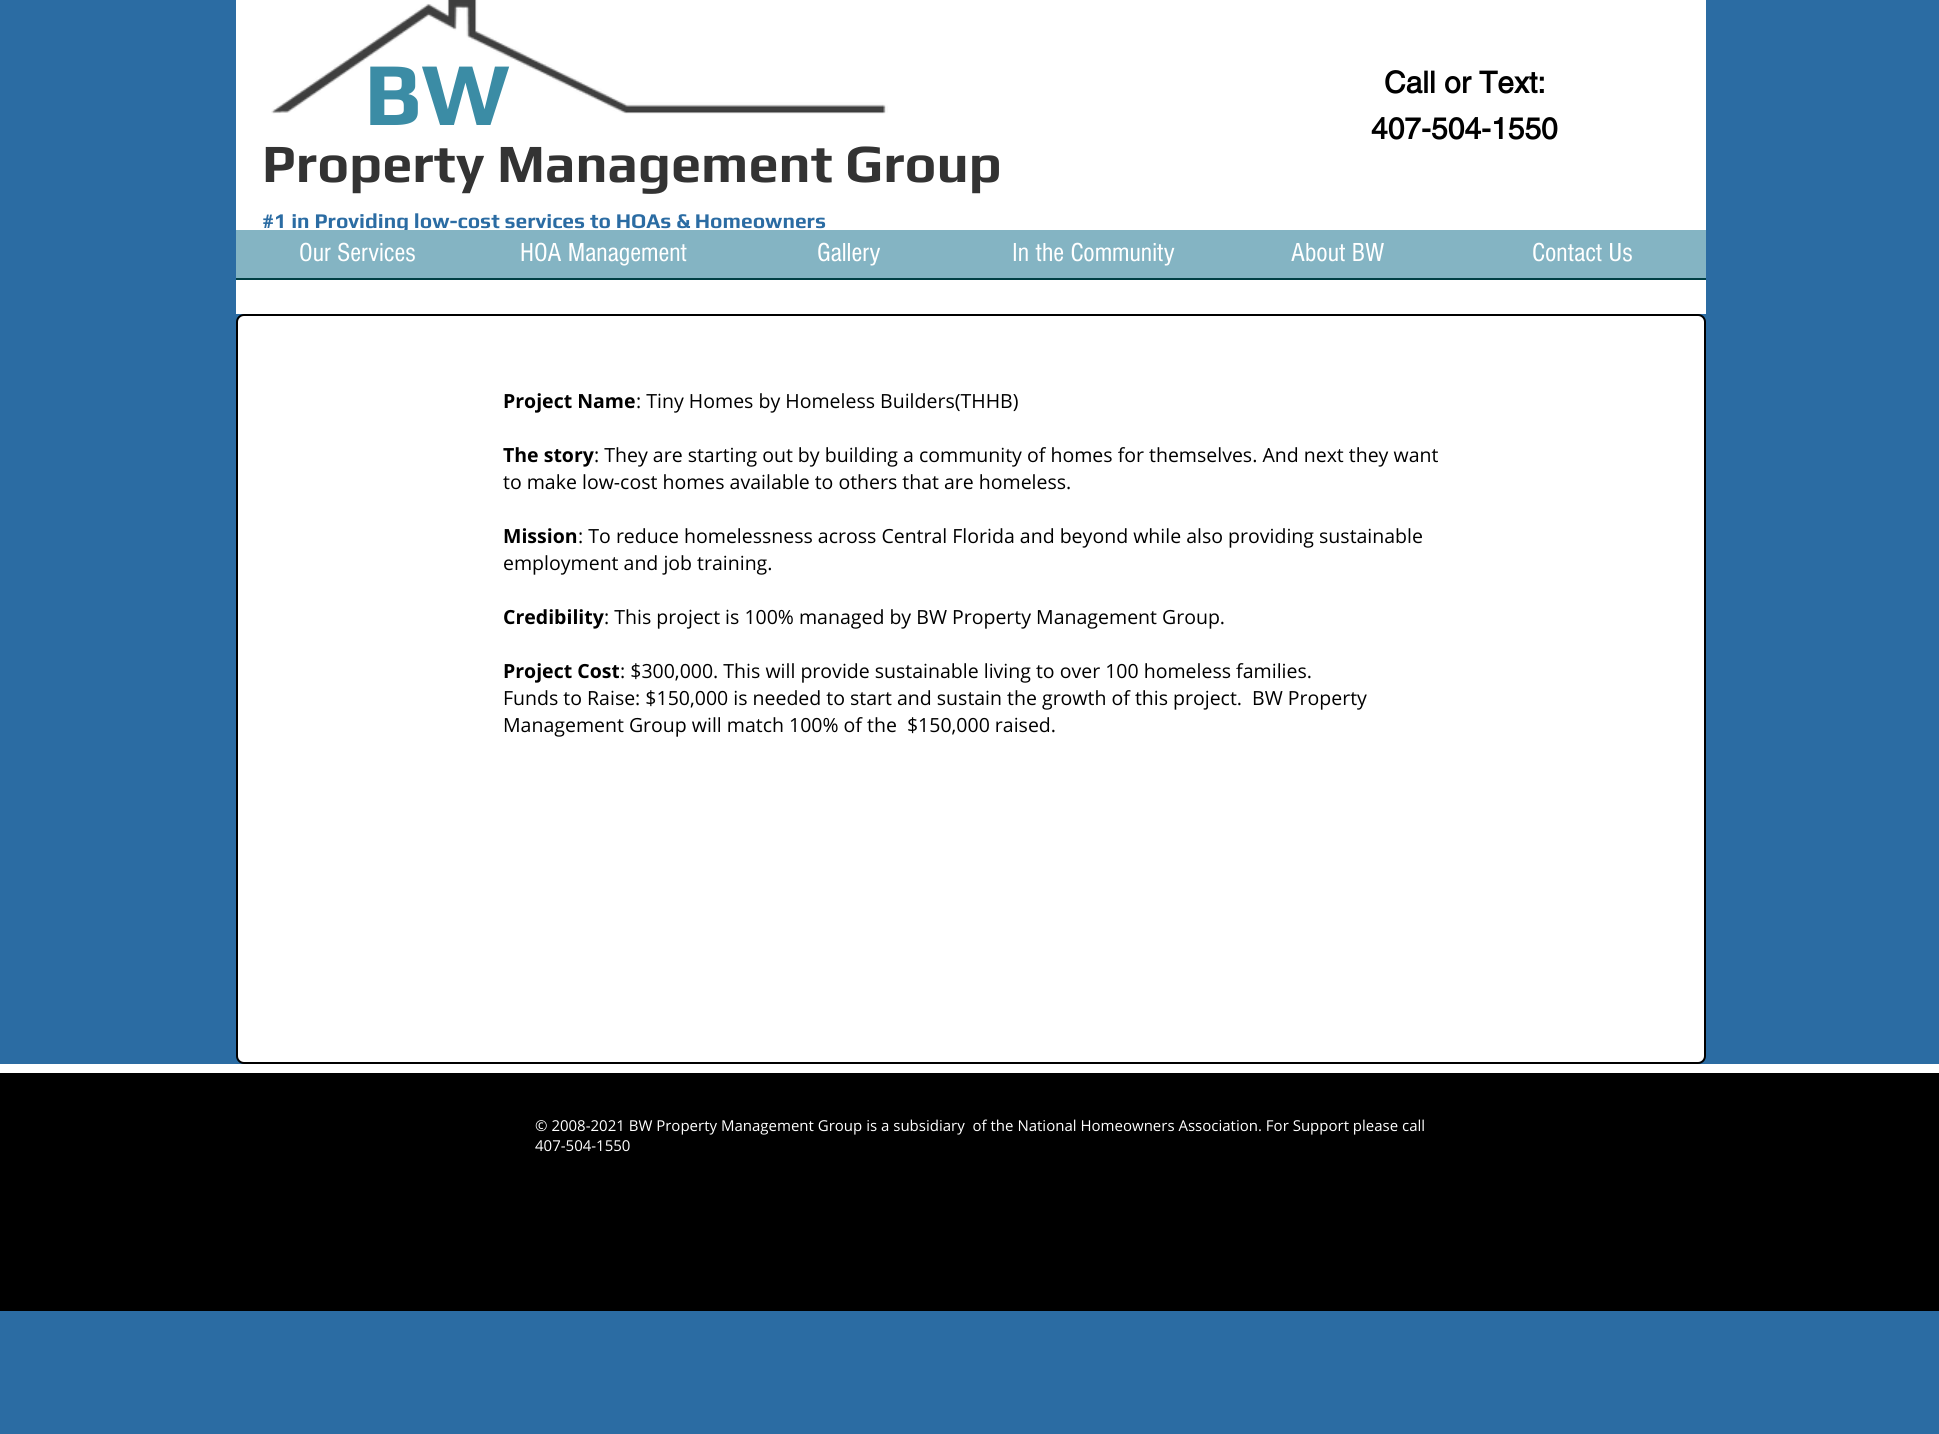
import math
import cairo


def use_color(cr, r, g, b):
  cr.set_source_rgb(r / 255, g / 255, b / 255)

def text(cr, x, y, s, family, size, color, bold=False, italic=False):
  cr.select_font_face(family, cairo.FONT_SLANT_ITALIC if italic else cairo.FONT_SLANT_NORMAL, cairo.FONT_WEIGHT_BOLD if bold else cairo.FONT_WEIGHT_NORMAL)
  cr.set_font_size(size)
  use_color(cr, *color)
  cr.move_to(x, y)
  cr.show_text(s)

def box(cr, x, y, w, h, *color):
  use_color(cr, *color)
  cr.rectangle(x, y, w, h)
  cr.fill()

def round_rect(cr, x, y, w, h, r):
  cr.new_sub_path()
  for i, (u, v) in enumerate([(x + w - r, y + h - r), (x + r, y + h - r), (x + r, y + r), (x + w - r, y + r)]):
    cr.arc(u, v, r, i * math.pi / 2, (i + 1) * math.pi / 2)
  cr.close_path()

def picture(cr, path, x, y, w, h):
  cr.save()
  cr.set_source_surface(cairo.ImageSurface.create_from_png(path), x, y)
  cr.rectangle(x, y, w, h)
  cr.fill()
  cr.restore()

def draw(cr):
  use_color(cr, 43, 108, 163)
  cr.paint()
  box(cr, 236, 0, 1470, 314, 255, 255, 255)
  picture(cr, "img_01.png", 271, 0, 617, 114)
  box(cr, 236, 278, 1470, 2, 0, 63, 68)
  use_color(cr, 255, 255, 255)
  round_rect(cr, 237, 315, 1468, 748, 7)
  cr.fill_preserve()
  use_color(cr, 0, 0, 0)
  cr.stroke()
  picture(cr, "img_02.png", 236, 1063, 198, 1)
  picture(cr, "img_03.png", 1508, 1063, 197, 1)
  box(cr, 0, 1073, 1939, 238, 0, 0, 0)
  box(cr, 0, 1064, 1939, 9, 255, 255, 255)
  text(cr, 364, 125, "BW", "Play", 90, (59, 140, 165), bold=True)
  text(cr, 1384, 93, "Call or Text:", "helvetica", 30, (0, 0, 0), bold=True)
  text(cr, 1371, 139, "407-504-1550", "helvetica", 30, (0, 0, 0), bold=True)
  text(cr, 262, 182, "Property Management Group", "Play", 54, (51, 51, 51), bold=True)
  text(cr, 262, 228, "#1 in Providing low-cost services to HOAs & Homeowners", "Play", 21, (43, 108, 163), bold=True)
  box(cr, 236, 230, 1470, 48, 132, 180, 195)
  text(cr, 299, 261, "Our Services", "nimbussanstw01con", 27, (255, 255, 255))
  text(cr, 520, 261, "HOA Management", "nimbussanstw01con", 27, (255, 255, 255))
  text(cr, 817, 261, "Gallery", "nimbussanstw01con", 27, (255, 255, 255))
  text(cr, 1012, 261, "In the Community", "nimbussanstw01con", 27, (255, 255, 255))
  text(cr, 1291, 261, "About BW", "nimbussanstw01con", 27, (255, 255, 255))
  text(cr, 1532, 261, "Contact Us", "nimbussanstw01con", 27, (255, 255, 255))
  text(cr, 503, 408, "Project Name", "Open Sans", 19.5, (0, 0, 0), bold=True)
  text(cr, 636, 408, ": Tiny Homes by Homeless Builders(THHB)", "Open Sans", 19.5, (0, 0, 0))
  text(cr, 503, 462, "The story", "Open Sans", 19.5, (0, 0, 0), bold=True)
  text(cr, 594, 462, ": They are starting out by building a community of homes for themselves. And next they want", "Open Sans", 19.5, (0, 0, 0))
  text(cr, 503, 489, "to make low-cost homes available to others that are homeless.", "Open Sans", 19.5, (0, 0, 0))
  text(cr, 503, 543, "Mission", "Open Sans", 19.5, (0, 0, 0), bold=True)
  text(cr, 578, 543, ": To reduce homelessness across Central Florida and beyond while also providing sustainable", "Open Sans", 19.5, (0, 0, 0))
  text(cr, 503, 570, "employment and job training.", "Open Sans", 19.5, (0, 0, 0))
  text(cr, 503, 624, "Credibility", "Open Sans", 19.5, (0, 0, 0), bold=True)
  text(cr, 604, 624, ": This project is 100% managed by BW Property Management Group.", "Open Sans", 19.5, (0, 0, 0))
  text(cr, 503, 678, "Project Cost", "Open Sans", 19.5, (0, 0, 0), bold=True)
  text(cr, 620, 678, ": $300,000. This will provide sustainable living to over 100 homeless families.", "Open Sans", 19.5, (0, 0, 0))
  text(cr, 503, 705, "Funds to Raise: $150,000 is needed to start and sustain the growth of this project.  BW Property", "Open Sans", 19.5, (0, 0, 0))
  text(cr, 503, 732, "Management Group will match 100% of the  $150,000 raised.", "Open Sans", 19.5, (0, 0, 0))
  text(cr, 535, 1131, "© 2008-2021 BW Property Management Group is a subsidiary  of the National Homeowners Association. For Support please call", "Open Sans", 15, (255, 255, 255))
  text(cr, 535, 1151, "407-504-1550", "Open Sans", 15, (255, 255, 255))


surface = cairo.ImageSurface(cairo.FORMAT_RGB24, 1939, 1434)
cr = cairo.Context(surface)
options = cairo.FontOptions()
options.set_hint_metrics(cairo.HINT_METRICS_OFF)
options.set_hint_style(cairo.HINT_STYLE_NONE)
cr.set_font_options(options)
cr.set_miter_limit(4)
draw(cr)
surface.write_to_png("out.png")
